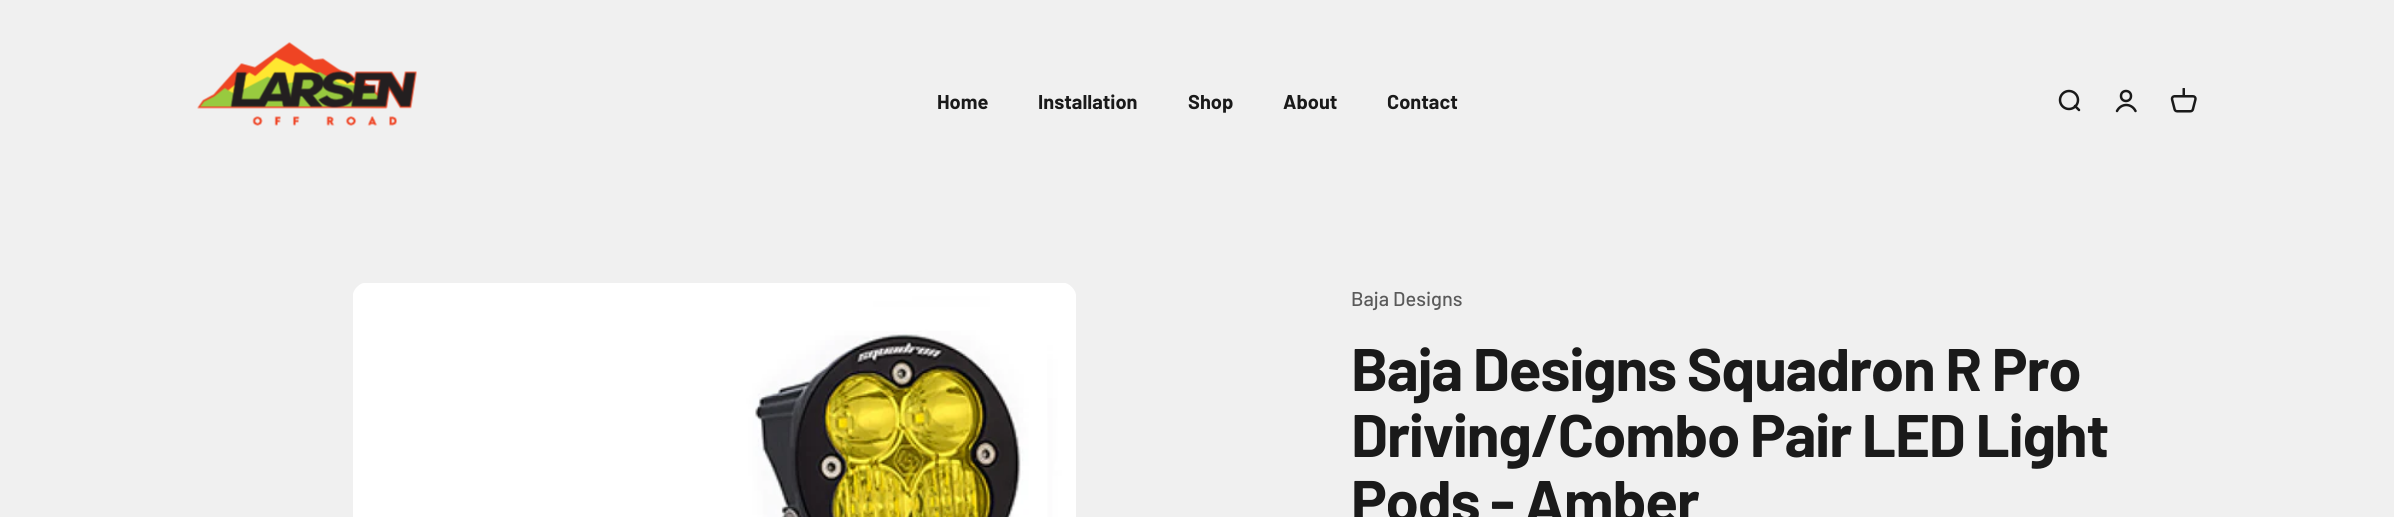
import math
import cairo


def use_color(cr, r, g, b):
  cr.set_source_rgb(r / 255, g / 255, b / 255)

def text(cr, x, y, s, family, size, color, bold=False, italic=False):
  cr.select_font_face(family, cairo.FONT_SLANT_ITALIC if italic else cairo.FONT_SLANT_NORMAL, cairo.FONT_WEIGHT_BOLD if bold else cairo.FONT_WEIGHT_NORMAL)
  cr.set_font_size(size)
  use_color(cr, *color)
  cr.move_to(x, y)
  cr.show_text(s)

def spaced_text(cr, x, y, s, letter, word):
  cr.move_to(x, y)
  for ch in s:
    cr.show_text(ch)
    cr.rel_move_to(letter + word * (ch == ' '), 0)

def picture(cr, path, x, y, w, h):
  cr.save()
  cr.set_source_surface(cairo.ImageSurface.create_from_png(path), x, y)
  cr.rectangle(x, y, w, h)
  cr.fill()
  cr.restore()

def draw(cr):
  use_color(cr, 240, 240, 240)
  cr.paint()
  picture(cr, "img_01.png", 197, 42, 220, 84)
  cr.arc(2069, 100, 9, 0, 2 * math.pi)
  use_color(cr, 26, 26, 26)
  cr.set_line_width(2.5)
  cr.stroke()
  cr.new_path()
  cr.move_to(2075, 106)
  cr.line_to(2079, 110)
  cr.set_line_cap(cairo.LINE_CAP_ROUND)
  cr.set_line_join(cairo.LINE_JOIN_ROUND)
  cr.stroke()
  cr.arc(2126, 96, 5, 0, 2 * math.pi)
  cr.set_line_cap(cairo.LINE_CAP_BUTT)
  cr.set_line_join(cairo.LINE_JOIN_MITER)
  cr.stroke()
  cr.new_path()
  cr.move_to(2117, 111)
  cr.curve_to(2121, 103, 2131.5, 103, 2135.5, 111)
  cr.set_line_cap(cairo.LINE_CAP_ROUND)
  cr.stroke()
  picture(cr, "img_02.png", 2170, 88, 27, 25)
  picture(cr, "img_03.png", 353, 283, 723, 234)
  text(cr, 937, 109, "Home", "Barlow", 20, (26, 26, 26), bold=True)
  text(cr, 1038, 109, "Installation", "Barlow", 20, (26, 26, 26), bold=True)
  text(cr, 1188, 109, "Shop", "Barlow", 20, (26, 26, 26), bold=True)
  text(cr, 1283, 109, "About", "Barlow", 20, (26, 26, 26), bold=True)
  text(cr, 1387, 109, "Contact", "Barlow", 20, (26, 26, 26), bold=True)
  text(cr, 1351, 306, "Baja Designs", "Barlow Medium", 20, (90, 90, 90))
  cr.select_font_face("Barlow", cairo.FONT_SLANT_NORMAL, cairo.FONT_WEIGHT_BOLD)
  cr.set_font_size(60)
  use_color(cr, 26, 26, 26)
  spaced_text(cr, 1351, 391, "Baja Designs Squadron R Pro", -1.2, 0)
  spaced_text(cr, 1351, 457, "Driving/Combo Pair LED Light", -1.2, 0)
  spaced_text(cr, 1351, 523, "Pods - Amber", -1.2, 0)


surface = cairo.ImageSurface(cairo.FORMAT_RGB24, 2394, 517)
cr = cairo.Context(surface)
options = cairo.FontOptions()
options.set_hint_metrics(cairo.HINT_METRICS_OFF)
options.set_hint_style(cairo.HINT_STYLE_NONE)
cr.set_font_options(options)
cr.set_miter_limit(4)
draw(cr)
surface.write_to_png("out.png")
